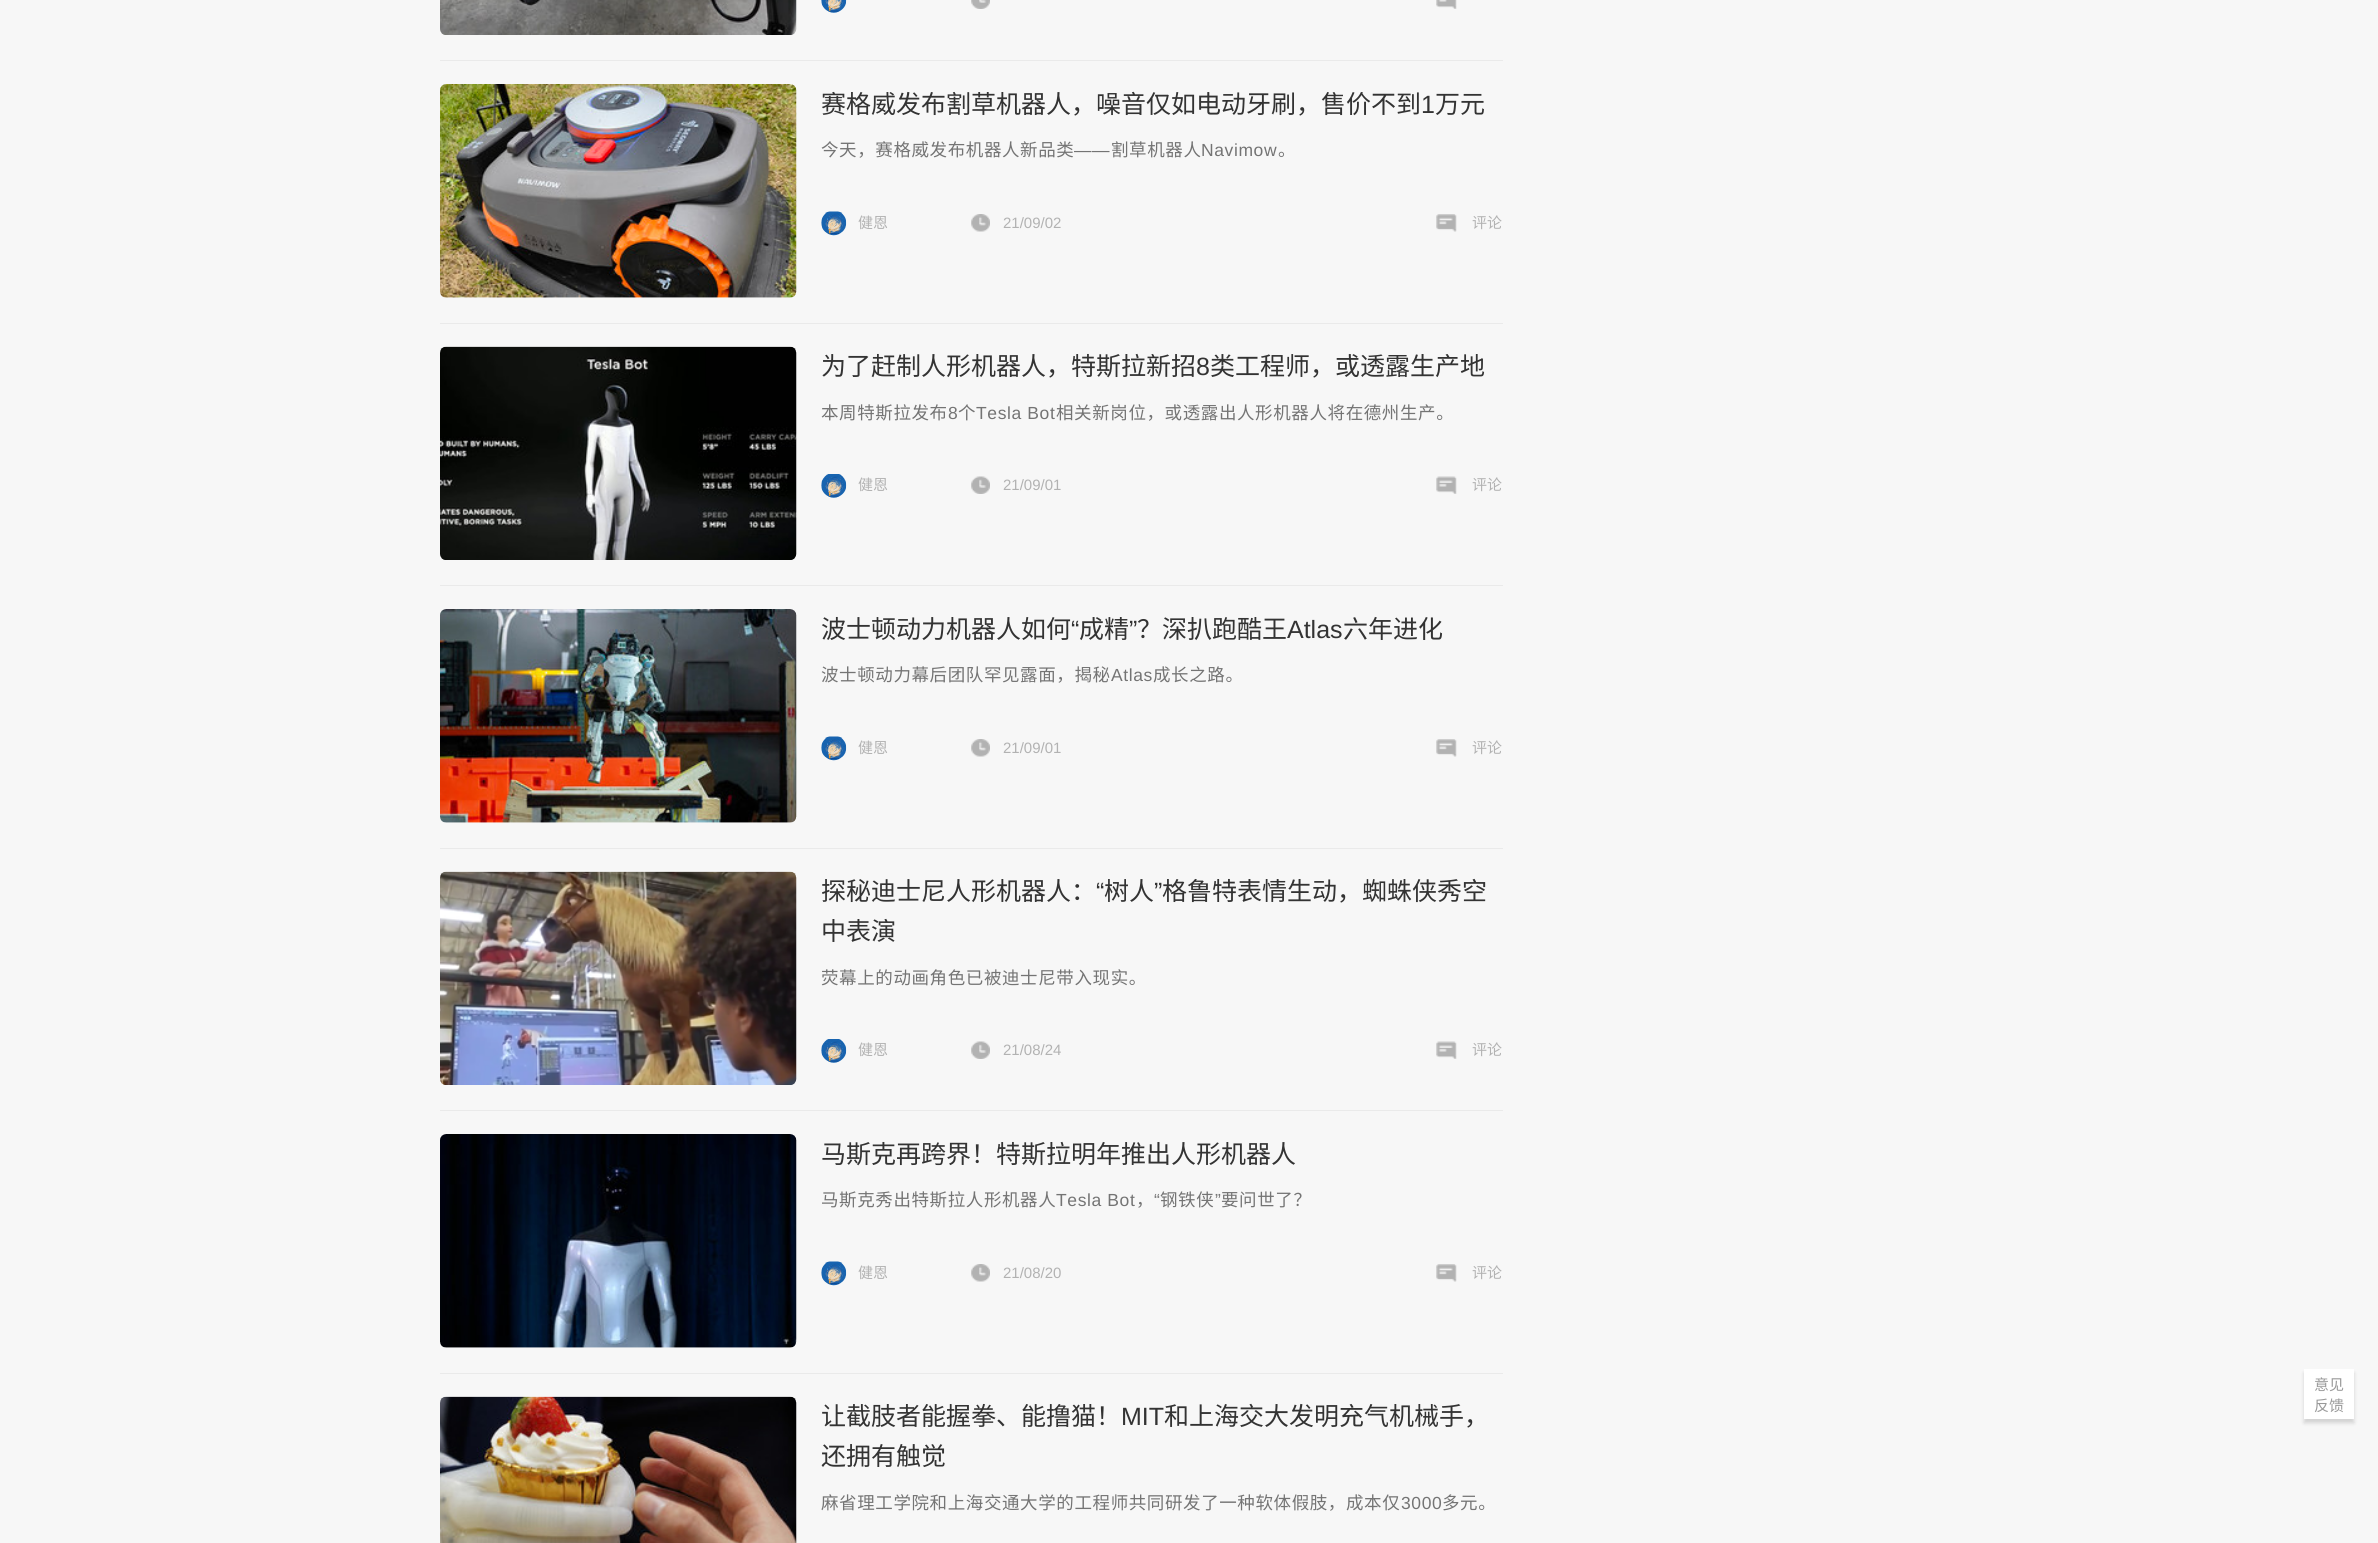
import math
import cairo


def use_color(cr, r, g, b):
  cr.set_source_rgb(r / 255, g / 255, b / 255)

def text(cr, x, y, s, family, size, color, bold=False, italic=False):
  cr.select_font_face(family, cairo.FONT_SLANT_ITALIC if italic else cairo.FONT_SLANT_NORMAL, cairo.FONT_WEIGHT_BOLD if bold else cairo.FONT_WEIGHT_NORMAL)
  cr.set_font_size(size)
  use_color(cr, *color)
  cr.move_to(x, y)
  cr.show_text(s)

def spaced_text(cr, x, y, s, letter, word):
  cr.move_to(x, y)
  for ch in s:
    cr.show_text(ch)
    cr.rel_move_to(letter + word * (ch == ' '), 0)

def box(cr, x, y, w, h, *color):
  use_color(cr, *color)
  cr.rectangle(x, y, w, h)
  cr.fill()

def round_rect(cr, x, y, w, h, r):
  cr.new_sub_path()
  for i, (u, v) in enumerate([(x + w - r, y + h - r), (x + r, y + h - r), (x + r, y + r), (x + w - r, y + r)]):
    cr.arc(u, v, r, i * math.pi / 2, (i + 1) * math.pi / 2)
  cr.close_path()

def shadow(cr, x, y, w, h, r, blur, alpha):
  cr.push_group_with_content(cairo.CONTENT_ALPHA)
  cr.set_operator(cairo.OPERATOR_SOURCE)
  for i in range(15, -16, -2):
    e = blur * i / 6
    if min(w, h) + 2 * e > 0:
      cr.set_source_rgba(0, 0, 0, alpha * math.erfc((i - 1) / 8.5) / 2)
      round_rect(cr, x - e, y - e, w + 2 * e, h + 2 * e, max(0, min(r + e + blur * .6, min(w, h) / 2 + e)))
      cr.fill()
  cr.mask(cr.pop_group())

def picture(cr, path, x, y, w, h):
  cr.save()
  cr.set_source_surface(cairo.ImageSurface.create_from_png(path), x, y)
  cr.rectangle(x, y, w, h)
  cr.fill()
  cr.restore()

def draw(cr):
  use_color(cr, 247, 247, 247)
  cr.paint()
  picture(cr, "img_01.png", 440, 0, 357, 35)
  picture(cr, "img_02.png", 821, 0, 26, 13)
  picture(cr, "img_03.png", 971, 0, 19, 9)
  picture(cr, "img_04.png", 1436, 0, 21, 9)
  box(cr, 440, 60, 1063, 1, 234, 234, 234)
  picture(cr, "img_05.png", 440, 84, 357, 214)
  picture(cr, "img_06.png", 821, 211, 26, 25)
  picture(cr, "img_07.png", 971, 214, 19, 18)
  picture(cr, "img_08.png", 1436, 214, 21, 18)
  box(cr, 440, 323, 1063, 1, 234, 234, 234)
  picture(cr, "img_09.png", 440, 346, 357, 214)
  picture(cr, "img_10.png", 821, 474, 26, 24)
  picture(cr, "img_11.png", 971, 476, 19, 18)
  picture(cr, "img_12.png", 1436, 476, 21, 18)
  box(cr, 440, 585, 1063, 1, 234, 234, 234)
  picture(cr, "img_13.png", 440, 609, 357, 214)
  picture(cr, "img_06.png", 821, 736, 26, 25)
  picture(cr, "img_07.png", 971, 739, 19, 18)
  picture(cr, "img_08.png", 1436, 739, 21, 18)
  box(cr, 440, 848, 1063, 1, 234, 234, 234)
  picture(cr, "img_14.png", 440, 871, 357, 214)
  picture(cr, "img_10.png", 821, 1039, 26, 24)
  picture(cr, "img_11.png", 971, 1041, 19, 18)
  picture(cr, "img_12.png", 1436, 1041, 21, 18)
  box(cr, 440, 1110, 1063, 1, 234, 234, 234)
  picture(cr, "img_15.png", 440, 1134, 357, 214)
  picture(cr, "img_06.png", 821, 1261, 26, 25)
  picture(cr, "img_07.png", 971, 1264, 19, 18)
  picture(cr, "img_08.png", 1436, 1264, 21, 18)
  box(cr, 440, 1373, 1063, 1, 234, 234, 234)
  picture(cr, "img_16.png", 440, 1396, 357, 147)
  use_color(cr, 0, 0, 0)
  shadow(cr, 2304, 1373, 50, 50, 0, 2, 0.15)
  box(cr, 2304, 1369, 50, 50, 255, 255, 255)
  text(cr, 821, 113, "赛格威发布割草机器人，噪音仅如电动牙刷，售价不到", "Noto Sans CJK SC", 25, (51, 51, 51))
  text(cr, 1421, 113, "1", "Liberation Sans", 25, (51, 51, 51))
  text(cr, 1435, 113, "万元", "Noto Sans CJK SC", 25, (51, 51, 51))
  cr.set_font_size(17.5)
  use_color(cr, 116, 116, 116)
  spaced_text(cr, 821, 156, "今天，赛格威发布机器人新品类", 0.6, 0)
  cr.select_font_face("Liberation Sans")
  spaced_text(cr, 1074, 156, "——", 0.6, 0)
  cr.select_font_face("Noto Sans CJK SC")
  spaced_text(cr, 1111, 156, "割草机器人", 0.6, 0)
  cr.select_font_face("Liberation Sans")
  spaced_text(cr, 1201, 156, "Navimow", 0.6, 0)
  cr.select_font_face("Noto Sans CJK SC")
  spaced_text(cr, 1278, 156, "。", 0.6, 0)
  text(cr, 858, 228, "健恩", "Noto Sans CJK SC", 15, (178, 178, 178))
  text(cr, 1003, 228, "21/09/02", "Liberation Sans", 15, (178, 178, 178))
  text(cr, 1472, 228, "评论", "Noto Sans CJK SC", 15, (178, 178, 178))
  text(cr, 821, 375, "为了赶制人形机器人，特斯拉新招", "Noto Sans CJK SC", 25, (51, 51, 51))
  text(cr, 1196, 375, "8", "Liberation Sans", 25, (51, 51, 51))
  text(cr, 1210, 375, "类工程师，或透露生产地", "Noto Sans CJK SC", 25, (51, 51, 51))
  cr.set_font_size(17.5)
  use_color(cr, 116, 116, 116)
  spaced_text(cr, 821, 419, "本周特斯拉发布", 0.6, 0)
  cr.select_font_face("Liberation Sans")
  spaced_text(cr, 948, 419, "8", 0.6, 0)
  cr.select_font_face("Noto Sans CJK SC")
  spaced_text(cr, 958, 419, "个", 0.6, 0)
  cr.select_font_face("Liberation Sans")
  spaced_text(cr, 976, 419, "Tesla Bot", 0.6, 0)
  cr.select_font_face("Noto Sans CJK SC")
  spaced_text(cr, 1056, 419, "相关新岗位，或透露出人形机器人将在德州生产。", 0.6, 0)
  text(cr, 858, 490, "健恩", "Noto Sans CJK SC", 15, (178, 178, 178))
  text(cr, 1003, 490, "21/09/01", "Liberation Sans", 15, (178, 178, 178))
  text(cr, 1472, 490, "评论", "Noto Sans CJK SC", 15, (178, 178, 178))
  text(cr, 821, 638, "波士顿动力机器人如何", "Noto Sans CJK SC", 25, (51, 51, 51))
  text(cr, 1071, 638, "“", "Liberation Sans", 25, (51, 51, 51))
  text(cr, 1079, 638, "成精", "Noto Sans CJK SC", 25, (51, 51, 51))
  text(cr, 1129, 638, "”", "Liberation Sans", 25, (51, 51, 51))
  text(cr, 1137, 638, "？深扒跑酷王", "Noto Sans CJK SC", 25, (51, 51, 51))
  text(cr, 1287, 638, "Atlas", "Liberation Sans", 25, (51, 51, 51))
  text(cr, 1343, 638, "六年进化", "Noto Sans CJK SC", 25, (51, 51, 51))
  cr.set_font_size(17.5)
  use_color(cr, 116, 116, 116)
  spaced_text(cr, 821, 681, "波士顿动力幕后团队罕见露面，揭秘", 0.6, 0)
  cr.select_font_face("Liberation Sans")
  spaced_text(cr, 1111, 681, "Atlas", 0.6, 0)
  cr.select_font_face("Noto Sans CJK SC")
  spaced_text(cr, 1153, 681, "成长之路。", 0.6, 0)
  text(cr, 858, 753, "健恩", "Noto Sans CJK SC", 15, (178, 178, 178))
  text(cr, 1003, 753, "21/09/01", "Liberation Sans", 15, (178, 178, 178))
  text(cr, 1472, 753, "评论", "Noto Sans CJK SC", 15, (178, 178, 178))
  text(cr, 821, 900, "探秘迪士尼人形机器人：", "Noto Sans CJK SC", 25, (51, 51, 51))
  text(cr, 1096, 900, "“", "Liberation Sans", 25, (51, 51, 51))
  text(cr, 1104, 900, "树人", "Noto Sans CJK SC", 25, (51, 51, 51))
  text(cr, 1154, 900, "”", "Liberation Sans", 25, (51, 51, 51))
  text(cr, 1162, 900, "格鲁特表情生动，蜘蛛侠秀空", "Noto Sans CJK SC", 25, (51, 51, 51))
  text(cr, 821, 940, "中表演", "Noto Sans CJK SC", 25, (51, 51, 51))
  cr.set_font_size(17.5)
  use_color(cr, 116, 116, 116)
  spaced_text(cr, 821, 984, "荧幕上的动画角色已被迪士尼带入现实。", 0.6, 0)
  text(cr, 858, 1055, "健恩", "Noto Sans CJK SC", 15, (178, 178, 178))
  text(cr, 1003, 1055, "21/08/24", "Liberation Sans", 15, (178, 178, 178))
  text(cr, 1472, 1055, "评论", "Noto Sans CJK SC", 15, (178, 178, 178))
  text(cr, 821, 1163, "马斯克再跨界！特斯拉明年推出人形机器人", "Noto Sans CJK SC", 25, (51, 51, 51))
  cr.set_font_size(17.5)
  use_color(cr, 116, 116, 116)
  spaced_text(cr, 821, 1206, "马斯克秀出特斯拉人形机器人", 0.6, 0)
  cr.select_font_face("Liberation Sans")
  spaced_text(cr, 1056, 1206, "Tesla Bot", 0.6, 0)
  spaced_text(cr, 1154, 1206, "“", 0.6, 0)
  cr.select_font_face("Noto Sans CJK SC")
  spaced_text(cr, 1160, 1206, "钢铁侠", 0.6, 0)
  cr.select_font_face("Liberation Sans")
  spaced_text(cr, 1215, 1206, "”", 0.6, 0)
  cr.select_font_face("Noto Sans CJK SC")
  spaced_text(cr, 1221, 1206, "要问世了？", 0.6, 0)
  spaced_text(cr, 1136, 1206, "，", 0.6, 0)
  text(cr, 858, 1278, "健恩", "Noto Sans CJK SC", 15, (178, 178, 178))
  text(cr, 1003, 1278, "21/08/20", "Liberation Sans", 15, (178, 178, 178))
  text(cr, 1472, 1278, "评论", "Noto Sans CJK SC", 15, (178, 178, 178))
  text(cr, 821, 1425, "让截肢者能握拳、能撸猫！", "Noto Sans CJK SC", 25, (51, 51, 51))
  text(cr, 1121, 1425, "MIT", "Liberation Sans", 25, (51, 51, 51))
  text(cr, 1164, 1425, "和上海交大发明充气机械手，", "Noto Sans CJK SC", 25, (51, 51, 51))
  text(cr, 821, 1465, "还拥有触觉", "Noto Sans CJK SC", 25, (51, 51, 51))
  cr.set_font_size(17.5)
  use_color(cr, 116, 116, 116)
  spaced_text(cr, 821, 1509, "麻省理工学院和上海交通大学的工程师共同研发了一种软体假肢，成本仅", 0.6, 0)
  cr.select_font_face("Liberation Sans")
  spaced_text(cr, 1401, 1509, "3000", 0.6, 0)
  cr.select_font_face("Noto Sans CJK SC")
  spaced_text(cr, 1442, 1509, "多元。", 0.6, 0)
  text(cr, 2314, 1390, "意见", "Noto Sans CJK SC", 15, (153, 153, 153))
  text(cr, 2314, 1411, "反馈", "Noto Sans CJK SC", 15, (153, 153, 153))


surface = cairo.ImageSurface(cairo.FORMAT_RGB24, 2378, 1543)
cr = cairo.Context(surface)
options = cairo.FontOptions()
options.set_hint_metrics(cairo.HINT_METRICS_OFF)
options.set_hint_style(cairo.HINT_STYLE_NONE)
cr.set_font_options(options)
cr.set_miter_limit(4)
draw(cr)
surface.write_to_png("out.png")
